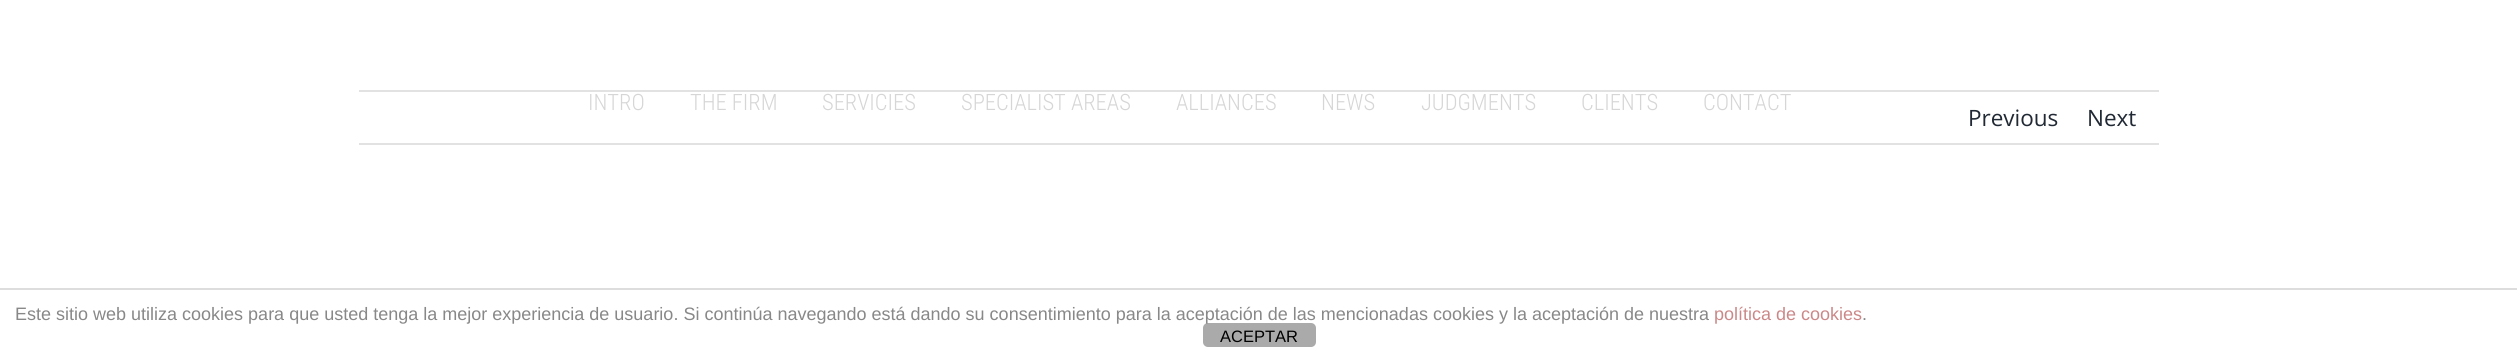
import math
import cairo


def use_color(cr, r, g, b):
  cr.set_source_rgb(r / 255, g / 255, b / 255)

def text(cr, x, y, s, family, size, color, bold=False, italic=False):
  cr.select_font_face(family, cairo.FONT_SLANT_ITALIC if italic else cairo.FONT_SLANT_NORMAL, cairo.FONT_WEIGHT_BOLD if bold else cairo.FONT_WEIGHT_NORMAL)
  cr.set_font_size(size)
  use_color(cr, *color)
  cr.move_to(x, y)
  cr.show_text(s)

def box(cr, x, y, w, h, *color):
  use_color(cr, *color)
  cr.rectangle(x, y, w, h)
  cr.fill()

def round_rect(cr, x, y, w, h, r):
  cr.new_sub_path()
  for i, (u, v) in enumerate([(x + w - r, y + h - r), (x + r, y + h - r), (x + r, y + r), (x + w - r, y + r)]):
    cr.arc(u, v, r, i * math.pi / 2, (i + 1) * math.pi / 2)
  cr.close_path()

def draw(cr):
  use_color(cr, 255, 255, 255)
  cr.paint()
  box(cr, 359, 90, 1800, 2, 226, 226, 226)
  box(cr, 359, 143, 1800, 2, 226, 226, 226)
  box(cr, 0, 288, 2517, 2, 221, 221, 221)
  use_color(cr, 170, 170, 170)
  round_rect(cr, 1203, 323, 113, 24, 5)
  cr.fill()
  text(cr, 588, 110, "INTRO", "Roboto Condensed Light", 22.5, (214, 214, 214))
  text(cr, 690, 110, "THE FIRM", "Roboto Condensed Light", 22.5, (214, 214, 214))
  text(cr, 822, 110, "SERVICIES", "Roboto Condensed Light", 22.5, (214, 214, 214))
  text(cr, 961, 110, "SPECIALIST AREAS", "Roboto Condensed Light", 22.5, (214, 214, 214))
  text(cr, 1176, 110, "ALLIANCES", "Roboto Condensed Light", 22.5, (214, 214, 214))
  text(cr, 1321, 110, "NEWS", "Roboto Condensed Light", 22.5, (214, 214, 214))
  text(cr, 1421, 110, "JUDGMENTS", "Roboto Condensed Light", 22.5, (214, 214, 214))
  text(cr, 1581, 110, "CLIENTS", "Roboto Condensed Light", 22.5, (214, 214, 214))
  text(cr, 1703, 110, "CONTACT", "Roboto Condensed Light", 22.5, (214, 214, 214))
  text(cr, 1968, 126, "Previous", "Open Sans", 22.5, (33, 41, 52))
  text(cr, 2087, 126, "Next", "Open Sans", 22.5, (33, 41, 52))
  text(cr, 15, 320, "Este sitio web utiliza cookies para que usted tenga la mejor experiencia de usuario. Si continúa navegando está dando su consentimiento para la aceptación de las mencionadas cookies y la aceptación de nuestra", "Liberation Sans", 18, (136, 136, 136))
  text(cr, 1714, 320, "política de cookies", "Liberation Sans", 18, (204, 136, 136))
  text(cr, 1862, 320, ".", "Liberation Sans", 18, (136, 136, 136))
  text(cr, 1220, 342, "ACEPTAR", "Liberation Sans", 16.5, (0, 0, 0))


surface = cairo.ImageSurface(cairo.FORMAT_RGB24, 2517, 362)
cr = cairo.Context(surface)
options = cairo.FontOptions()
options.set_hint_metrics(cairo.HINT_METRICS_OFF)
options.set_hint_style(cairo.HINT_STYLE_NONE)
cr.set_font_options(options)
cr.set_miter_limit(4)
draw(cr)
surface.write_to_png("out.png")
